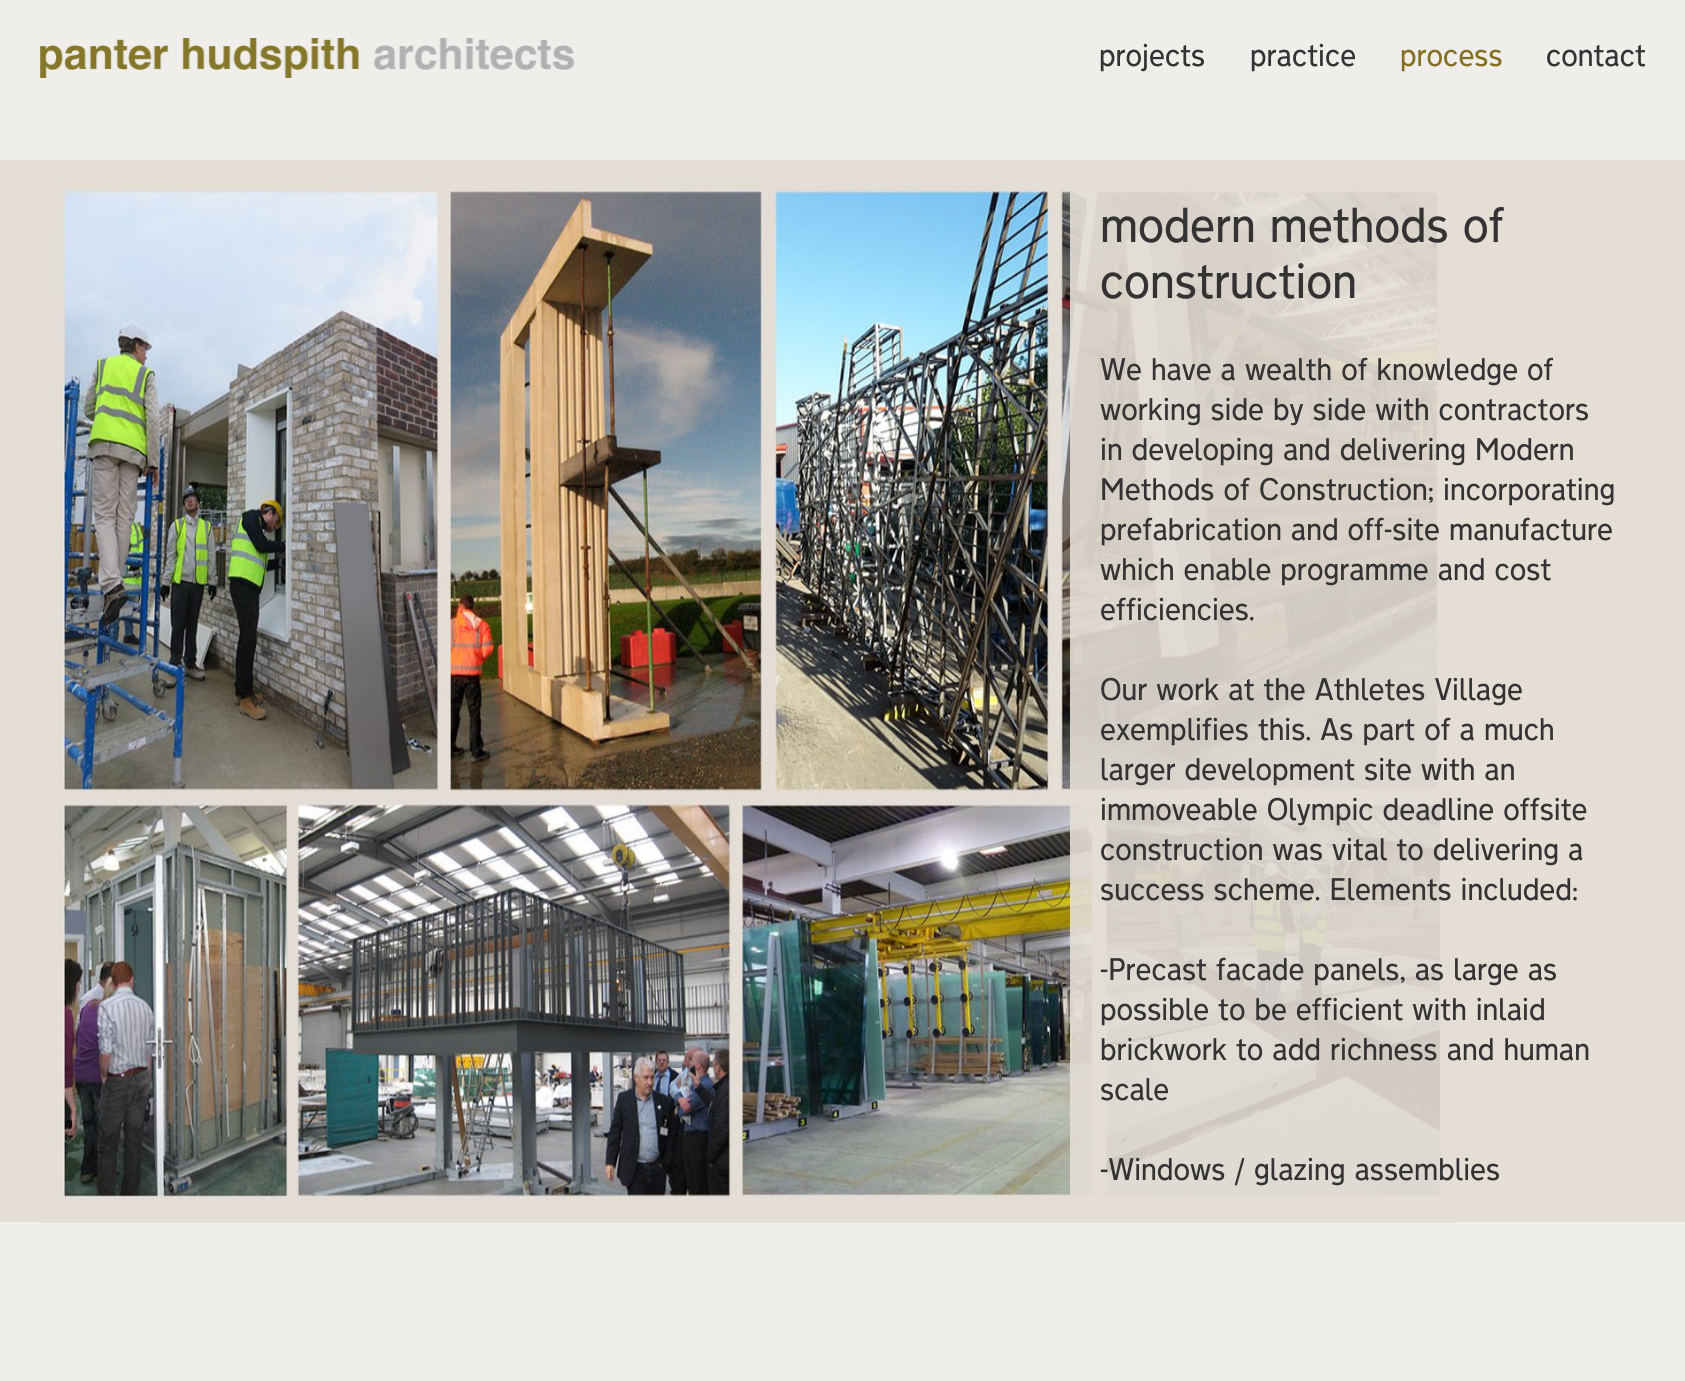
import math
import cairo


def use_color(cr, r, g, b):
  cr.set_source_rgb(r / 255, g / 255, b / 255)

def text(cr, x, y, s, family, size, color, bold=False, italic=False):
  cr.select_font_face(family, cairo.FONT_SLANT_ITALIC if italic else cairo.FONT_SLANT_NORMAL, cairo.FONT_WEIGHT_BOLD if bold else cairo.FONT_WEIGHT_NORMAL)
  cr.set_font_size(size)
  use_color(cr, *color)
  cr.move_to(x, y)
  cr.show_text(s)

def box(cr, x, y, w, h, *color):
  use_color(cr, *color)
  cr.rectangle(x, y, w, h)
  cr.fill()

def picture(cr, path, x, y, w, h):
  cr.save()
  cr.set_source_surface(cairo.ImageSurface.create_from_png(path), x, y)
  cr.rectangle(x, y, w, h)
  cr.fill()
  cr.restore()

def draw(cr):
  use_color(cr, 240, 238, 235)
  cr.paint()
  picture(cr, "img_01.png", 40, 38, 534, 40)
  box(cr, 0, 160, 1685, 1062, 228, 222, 213)
  picture(cr, "img_02.png", 40, 178, 1416, 1045)
  cr.set_source_rgba(0.894, 0.871, 0.835, 0.9)
  cr.rectangle(1070, 178, 373, 1021)
  cr.fill()
  text(cr, 1099, 66, "projects", "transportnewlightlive", 28, (51, 51, 51))
  text(cr, 1250, 66, "practice", "transportnewlightlive", 28, (51, 51, 51))
  text(cr, 1400, 66, "process", "transportnewlightlive", 28, (132, 112, 35))
  text(cr, 1546, 66, "contact", "transportnewlightlive", 28, (51, 51, 51))
  text(cr, 1100, 242, "modern methods of", "transportnewlightlive", 44, (51, 51, 51))
  text(cr, 1100, 298, "construction", "transportnewlightlive", 44, (51, 51, 51))
  text(cr, 1100, 380, "We have a wealth of knowledge of", "transportnewlightlive", 28, (51, 51, 51))
  text(cr, 1100, 420, "working side by side with contractors", "transportnewlightlive", 28, (51, 51, 51))
  text(cr, 1100, 460, "in developing and delivering Modern", "transportnewlightlive", 28, (51, 51, 51))
  text(cr, 1100, 500, "Methods of Construction; incorporating", "transportnewlightlive", 28, (51, 51, 51))
  text(cr, 1100, 540, "prefabrication and off-site manufacture", "transportnewlightlive", 28, (51, 51, 51))
  text(cr, 1100, 580, "which enable programme and cost", "transportnewlightlive", 28, (51, 51, 51))
  text(cr, 1100, 620, "efficiencies.", "transportnewlightlive", 28, (51, 51, 51))
  text(cr, 1100, 700, "Our work at the Athletes Village", "transportnewlightlive", 28, (51, 51, 51))
  text(cr, 1100, 740, "exemplifies this. As part of a much", "transportnewlightlive", 28, (51, 51, 51))
  text(cr, 1100, 780, "larger development site with an", "transportnewlightlive", 28, (51, 51, 51))
  text(cr, 1100, 820, "immoveable Olympic deadline offsite", "transportnewlightlive", 28, (51, 51, 51))
  text(cr, 1100, 860, "construction was vital to delivering a", "transportnewlightlive", 28, (51, 51, 51))
  text(cr, 1100, 900, "success scheme. Elements included:", "transportnewlightlive", 28, (51, 51, 51))
  text(cr, 1100, 980, "-Precast facade panels, as large as", "transportnewlightlive", 28, (51, 51, 51))
  text(cr, 1100, 1020, "possible to be efficient with inlaid", "transportnewlightlive", 28, (51, 51, 51))
  text(cr, 1100, 1060, "brickwork to add richness and human", "transportnewlightlive", 28, (51, 51, 51))
  text(cr, 1100, 1100, "scale", "transportnewlightlive", 28, (51, 51, 51))
  text(cr, 1100, 1180, "-Windows / glazing assemblies", "transportnewlightlive", 28, (51, 51, 51))


surface = cairo.ImageSurface(cairo.FORMAT_RGB24, 1685, 1381)
cr = cairo.Context(surface)
options = cairo.FontOptions()
options.set_hint_metrics(cairo.HINT_METRICS_OFF)
options.set_hint_style(cairo.HINT_STYLE_NONE)
cr.set_font_options(options)
cr.set_miter_limit(4)
draw(cr)
surface.write_to_png("out.png")
